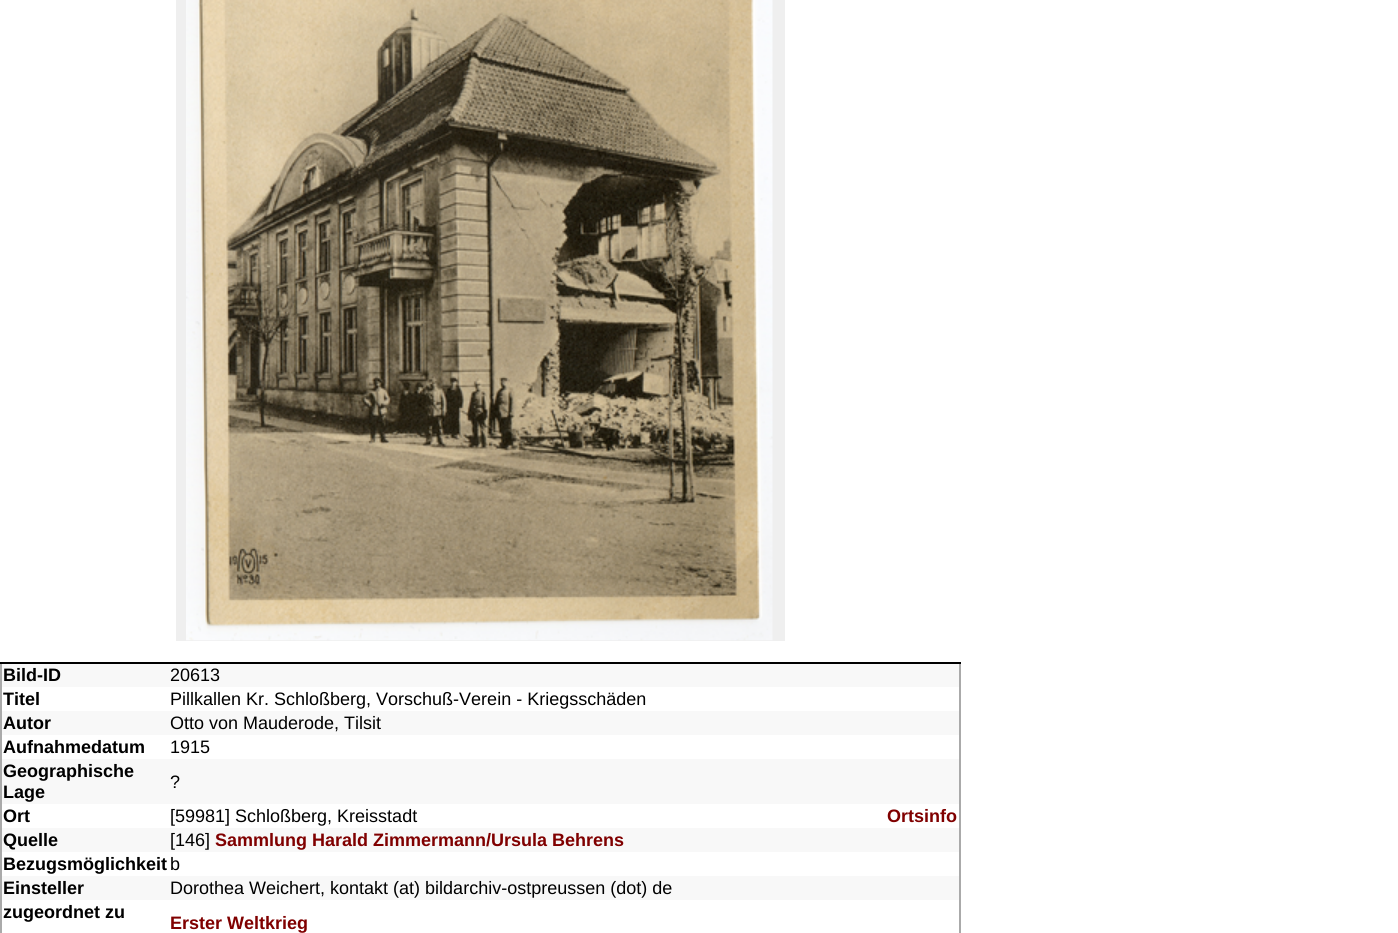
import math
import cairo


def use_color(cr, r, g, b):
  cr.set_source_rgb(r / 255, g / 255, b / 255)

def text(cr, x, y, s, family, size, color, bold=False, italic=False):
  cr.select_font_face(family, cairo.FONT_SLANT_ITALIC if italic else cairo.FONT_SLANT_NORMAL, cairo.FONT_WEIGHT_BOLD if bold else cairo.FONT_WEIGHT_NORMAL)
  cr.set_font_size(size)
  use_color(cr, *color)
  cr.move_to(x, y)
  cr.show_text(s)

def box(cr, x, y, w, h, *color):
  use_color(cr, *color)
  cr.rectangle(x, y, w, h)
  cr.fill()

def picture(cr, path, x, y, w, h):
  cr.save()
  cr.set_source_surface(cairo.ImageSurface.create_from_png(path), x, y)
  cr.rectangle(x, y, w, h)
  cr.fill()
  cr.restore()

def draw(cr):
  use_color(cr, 255, 255, 255)
  cr.paint()
  box(cr, 176, 0, 609, 641, 239, 239, 239)
  picture(cr, "img_01.png", 186, 0, 587, 641)
  box(cr, 959, 662, 2, 271, 170, 170, 170)
  box(cr, 0, 662, 2, 271, 170, 170, 170)
  box(cr, 0, 662, 961, 2, 0, 0, 0)
  box(cr, 2, 664, 957, 23, 248, 248, 248)
  box(cr, 2, 711, 957, 24, 248, 248, 248)
  box(cr, 2, 759, 957, 45, 248, 248, 248)
  box(cr, 2, 828, 957, 24, 248, 248, 248)
  box(cr, 2, 876, 957, 24, 248, 248, 248)
  text(cr, 3, 681, "Bild-ID", "Liberation Sans", 18, (0, 0, 0), bold=True)
  text(cr, 170, 681, "20613", "Liberation Sans", 18, (0, 0, 0))
  text(cr, 3, 705, "Titel", "Liberation Sans", 18, (0, 0, 0), bold=True)
  text(cr, 170, 705, "Pillkallen Kr. Schloßberg, Vorschuß-Verein - Kriegsschäden", "Liberation Sans", 18, (0, 0, 0))
  text(cr, 3, 729, "Autor", "Liberation Sans", 18, (0, 0, 0), bold=True)
  text(cr, 170, 729, "Otto von Mauderode, Tilsit", "Liberation Sans", 18, (0, 0, 0))
  text(cr, 3, 753, "Aufnahmedatum", "Liberation Sans", 18, (0, 0, 0), bold=True)
  text(cr, 170, 753, "1915", "Liberation Sans", 18, (0, 0, 0))
  text(cr, 3, 777, "Geographische", "Liberation Sans", 18, (0, 0, 0), bold=True)
  text(cr, 3, 798, "Lage", "Liberation Sans", 18, (0, 0, 0), bold=True)
  text(cr, 170, 788, "?", "Liberation Sans", 18, (0, 0, 0))
  text(cr, 3, 822, "Ort", "Liberation Sans", 18, (0, 0, 0), bold=True)
  text(cr, 170, 822, "[59981] Schloßberg, Kreisstadt", "Liberation Sans", 18, (0, 0, 0))
  text(cr, 887, 822, "Ortsinfo", "Liberation Sans", 18, (128, 0, 0), bold=True)
  text(cr, 3, 846, "Quelle", "Liberation Sans", 18, (0, 0, 0), bold=True)
  text(cr, 170, 846, "[146]", "Liberation Sans", 18, (0, 0, 0))
  text(cr, 215, 846, "Sammlung Harald Zimmermann/Ursula Behrens", "Liberation Sans", 18, (128, 0, 0), bold=True)
  text(cr, 3, 870, "Bezugsmöglichkeit", "Liberation Sans", 18, (0, 0, 0), bold=True)
  text(cr, 170, 870, "b", "Liberation Sans", 18, (0, 0, 0))
  text(cr, 3, 894, "Einsteller", "Liberation Sans", 18, (0, 0, 0), bold=True)
  text(cr, 170, 894, "Dorothea Weichert, kontakt (at) bildarchiv-ostpreussen (dot) de", "Liberation Sans", 18, (0, 0, 0))
  text(cr, 3, 918, "zugeordnet zu", "Liberation Sans", 18, (0, 0, 0), bold=True)
  text(cr, 170, 929, "Erster Weltkrieg", "Liberation Sans", 18, (128, 0, 0), bold=True)


surface = cairo.ImageSurface(cairo.FORMAT_RGB24, 1398, 933)
cr = cairo.Context(surface)
options = cairo.FontOptions()
options.set_hint_metrics(cairo.HINT_METRICS_OFF)
options.set_hint_style(cairo.HINT_STYLE_NONE)
cr.set_font_options(options)
cr.set_miter_limit(4)
draw(cr)
surface.write_to_png("out.png")
